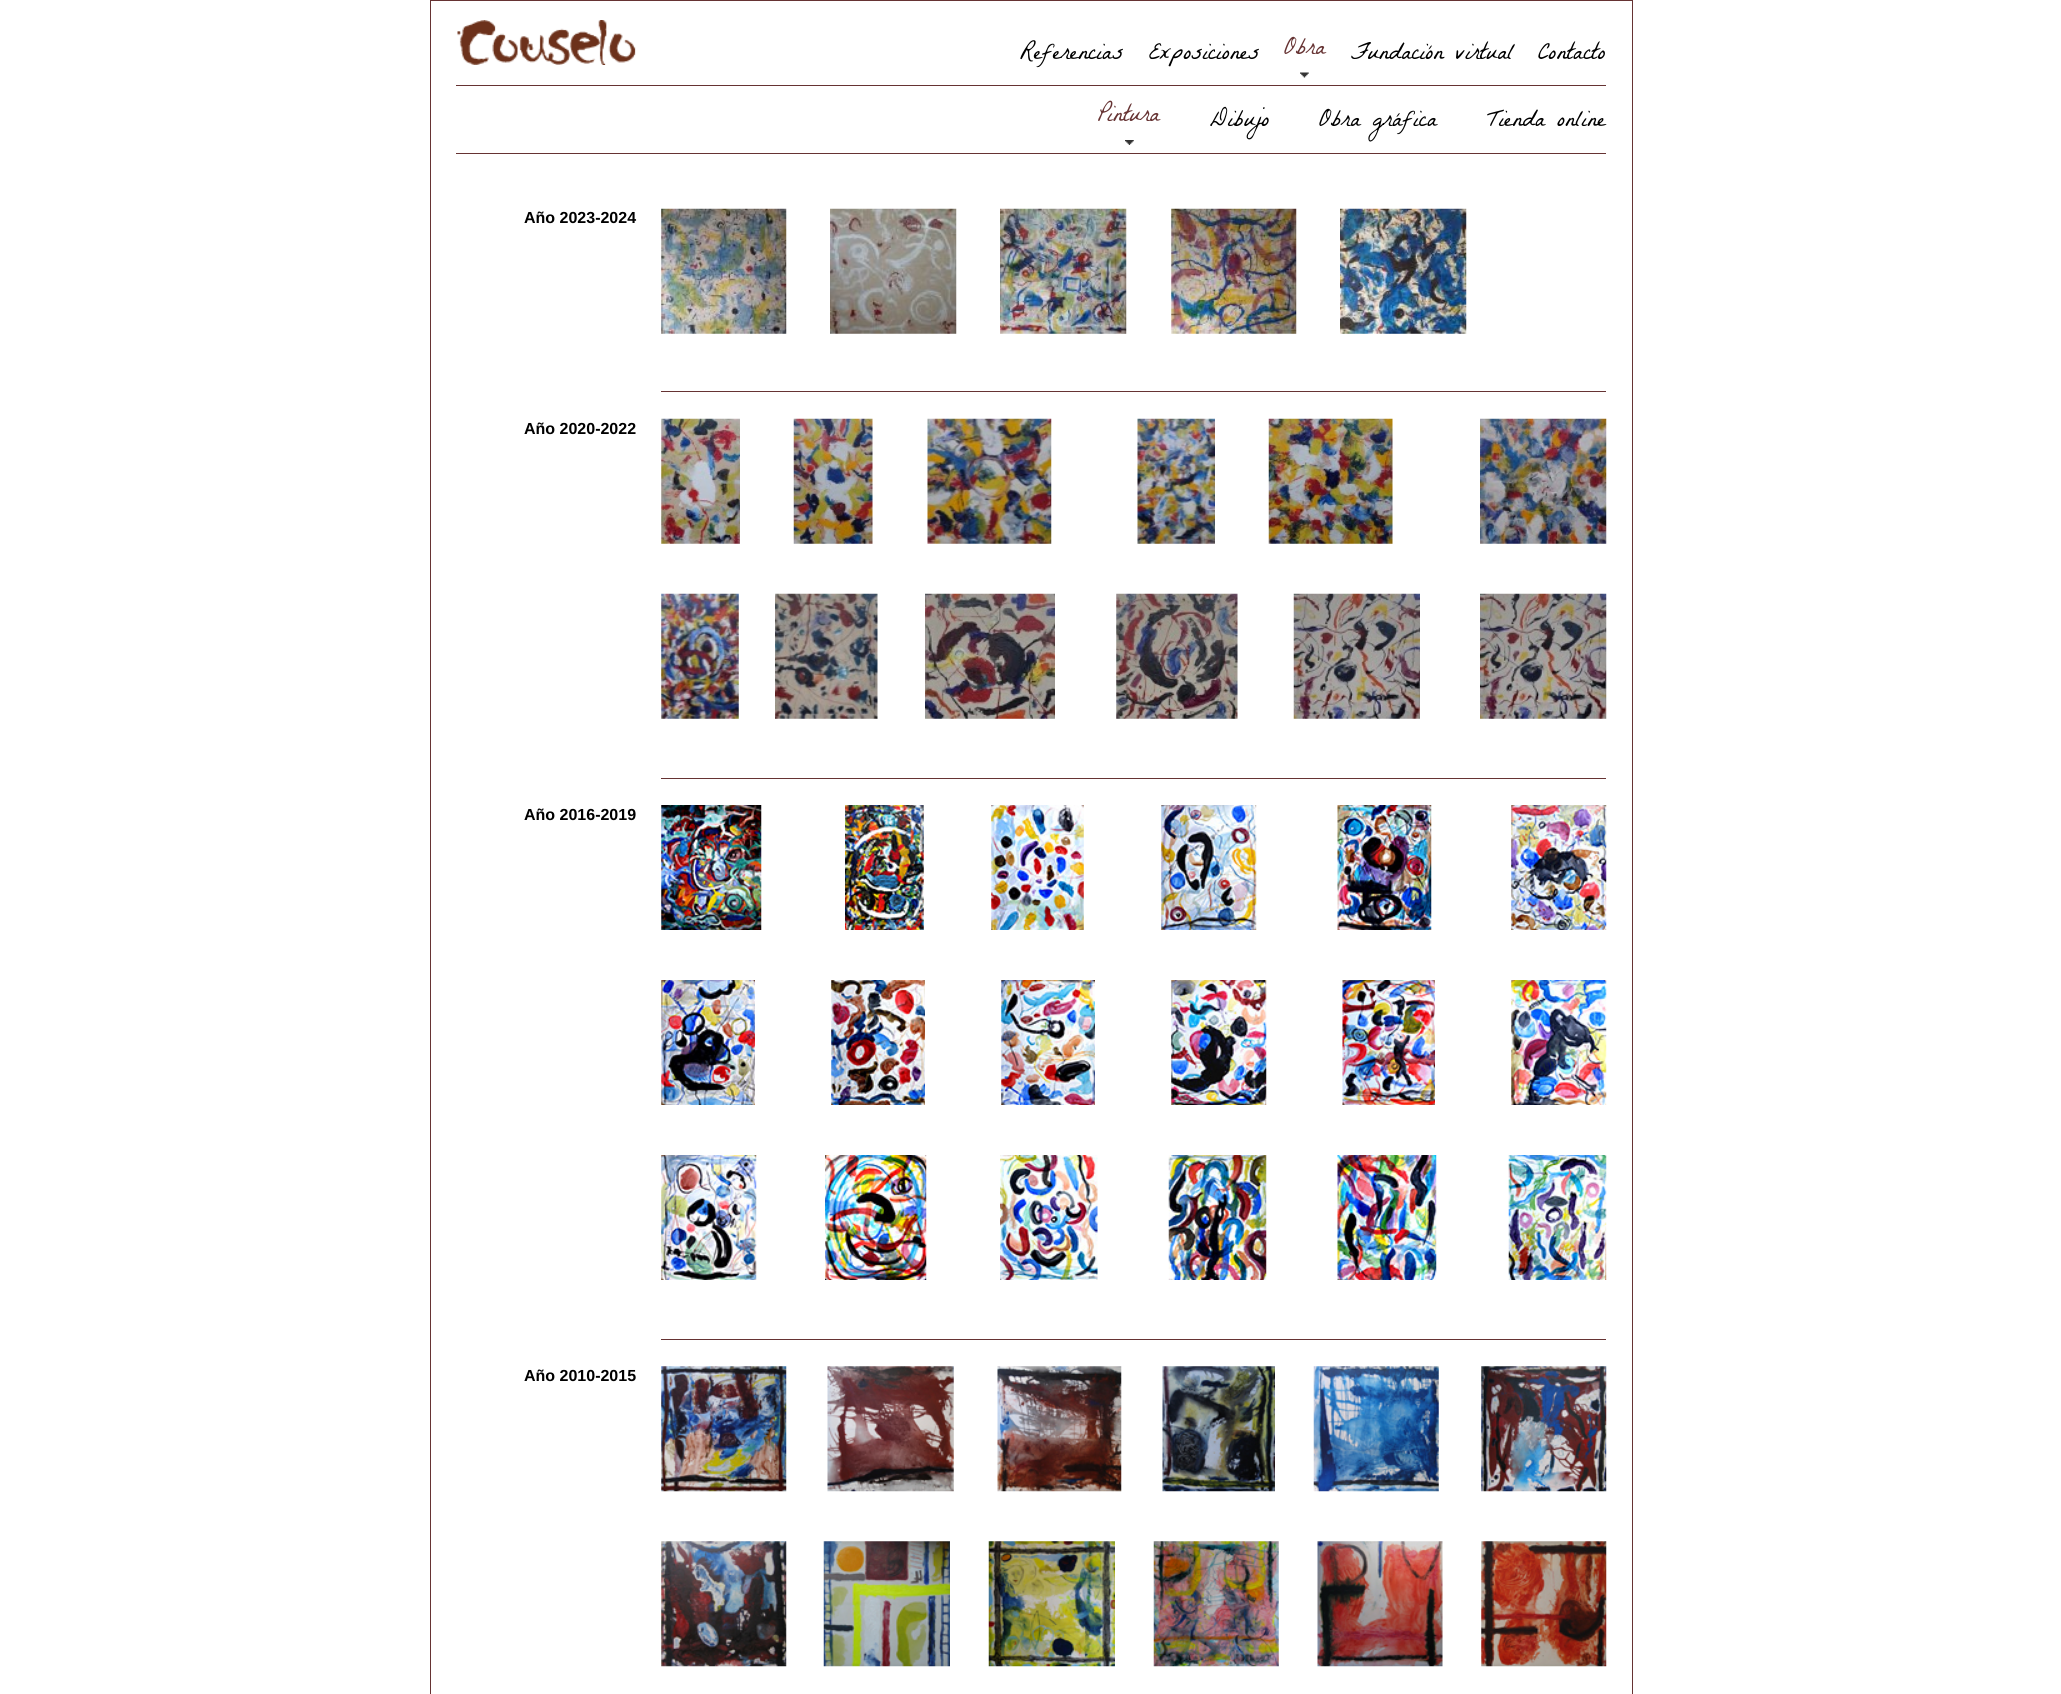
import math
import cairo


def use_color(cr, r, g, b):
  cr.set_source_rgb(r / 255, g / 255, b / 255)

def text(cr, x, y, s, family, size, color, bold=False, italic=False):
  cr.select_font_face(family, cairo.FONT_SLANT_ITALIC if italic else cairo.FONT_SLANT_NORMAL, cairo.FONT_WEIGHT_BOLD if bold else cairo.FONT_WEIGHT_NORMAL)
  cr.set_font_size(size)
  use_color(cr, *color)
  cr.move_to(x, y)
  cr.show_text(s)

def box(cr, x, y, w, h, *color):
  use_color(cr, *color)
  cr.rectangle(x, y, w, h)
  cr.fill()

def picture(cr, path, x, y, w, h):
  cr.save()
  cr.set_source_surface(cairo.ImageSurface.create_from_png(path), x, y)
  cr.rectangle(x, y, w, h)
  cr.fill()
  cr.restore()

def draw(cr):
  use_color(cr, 255, 255, 255)
  cr.paint()
  cr.rectangle(430.5, 0.5, 1202, 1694)
  use_color(cr, 102, 51, 51)
  cr.set_line_width(1)
  cr.stroke()
  picture(cr, "img_01.png", 457, 20, 179, 45)
  picture(cr, "img_02.png", 1300, 72, 9, 6)
  box(cr, 456, 85, 1150, 1, 102, 51, 51)
  picture(cr, "img_03.png", 1125, 140, 9, 5)
  box(cr, 456, 153, 1150, 1, 102, 51, 51)
  picture(cr, "img_04.png", 661, 208, 126, 126)
  picture(cr, "img_05.png", 830, 208, 127, 126)
  picture(cr, "img_06.png", 1000, 208, 127, 126)
  picture(cr, "img_07.png", 1171, 208, 126, 126)
  picture(cr, "img_08.png", 1340, 208, 127, 126)
  box(cr, 661, 391, 945, 1, 102, 51, 51)
  picture(cr, "img_09.png", 661, 418, 79, 126)
  picture(cr, "img_10.png", 793, 418, 80, 126)
  picture(cr, "img_11.png", 927, 418, 125, 126)
  picture(cr, "img_12.png", 1137, 418, 78, 126)
  picture(cr, "img_13.png", 1268, 418, 125, 126)
  picture(cr, "img_14.png", 1480, 418, 127, 126)
  picture(cr, "img_15.png", 661, 593, 78, 126)
  picture(cr, "img_16.png", 775, 593, 103, 126)
  picture(cr, "img_17.png", 925, 593, 130, 126)
  picture(cr, "img_18.png", 1116, 593, 122, 126)
  picture(cr, "img_19.png", 1293, 593, 127, 126)
  picture(cr, "img_20.png", 1480, 593, 127, 126)
  box(cr, 661, 778, 945, 1, 102, 51, 51)
  picture(cr, "img_21.png", 661, 805, 101, 125)
  picture(cr, "img_22.png", 845, 805, 79, 125)
  picture(cr, "img_23.png", 991, 805, 93, 125)
  picture(cr, "img_24.png", 1161, 805, 96, 125)
  picture(cr, "img_25.png", 1337, 805, 95, 125)
  picture(cr, "img_26.png", 1511, 805, 96, 125)
  picture(cr, "img_27.png", 661, 980, 94, 125)
  picture(cr, "img_28.png", 831, 980, 94, 125)
  picture(cr, "img_29.png", 1001, 980, 94, 125)
  picture(cr, "img_30.png", 1171, 980, 96, 125)
  picture(cr, "img_31.png", 1342, 980, 93, 125)
  picture(cr, "img_32.png", 1511, 980, 96, 125)
  picture(cr, "img_33.png", 661, 1155, 96, 125)
  picture(cr, "img_34.png", 825, 1155, 102, 125)
  picture(cr, "img_35.png", 1000, 1155, 98, 125)
  picture(cr, "img_36.png", 1168, 1155, 99, 125)
  picture(cr, "img_37.png", 1337, 1155, 100, 125)
  picture(cr, "img_38.png", 1508, 1155, 99, 125)
  box(cr, 661, 1339, 945, 1, 102, 51, 51)
  picture(cr, "img_39.png", 661, 1366, 126, 126)
  picture(cr, "img_40.png", 827, 1366, 127, 126)
  picture(cr, "img_41.png", 997, 1366, 125, 126)
  picture(cr, "img_42.png", 1162, 1366, 113, 126)
  picture(cr, "img_43.png", 1313, 1366, 126, 126)
  picture(cr, "img_44.png", 1481, 1366, 126, 126)
  picture(cr, "img_45.png", 661, 1541, 126, 126)
  picture(cr, "img_46.png", 823, 1541, 127, 126)
  picture(cr, "img_47.png", 988, 1541, 127, 126)
  picture(cr, "img_48.png", 1153, 1541, 126, 126)
  picture(cr, "img_49.png", 1317, 1541, 126, 126)
  picture(cr, "img_50.png", 1481, 1541, 126, 126)
  text(cr, 1020, 59, "Referencias", "La Belle Aurore", 24, (0, 0, 0))
  text(cr, 1149, 59, "Exposiciones", "La Belle Aurore", 24, (0, 0, 0))
  text(cr, 1284, 54, "Obra", "La Belle Aurore", 24, (102, 51, 51))
  text(cr, 1351, 59, "Fundación virtual", "La Belle Aurore", 24, (0, 0, 0))
  text(cr, 1538, 59, "Contacto", "La Belle Aurore", 24, (0, 0, 0))
  text(cr, 1098, 121, "Pintura", "La Belle Aurore", 24, (102, 51, 51))
  text(cr, 1210, 126, "Dibujo", "La Belle Aurore", 24, (0, 0, 0))
  text(cr, 1319, 126, "Obra gráfica", "La Belle Aurore", 24, (0, 0, 0))
  text(cr, 1487, 126, "Tienda online", "La Belle Aurore", 24, (0, 0, 0))
  text(cr, 524, 223, "Año 2023-2024", "Liberation Sans", 16, (0, 0, 0), bold=True)
  text(cr, 524, 434, "Año 2020-2022", "Liberation Sans", 16, (0, 0, 0), bold=True)
  text(cr, 524, 820, "Año 2016-2019", "Liberation Sans", 16, (0, 0, 0), bold=True)
  text(cr, 524, 1381, "Año 2010-2015", "Liberation Sans", 16, (0, 0, 0), bold=True)


surface = cairo.ImageSurface(cairo.FORMAT_RGB24, 2061, 1694)
cr = cairo.Context(surface)
options = cairo.FontOptions()
options.set_hint_metrics(cairo.HINT_METRICS_OFF)
options.set_hint_style(cairo.HINT_STYLE_NONE)
cr.set_font_options(options)
cr.set_miter_limit(4)
draw(cr)
surface.write_to_png("out.png")
